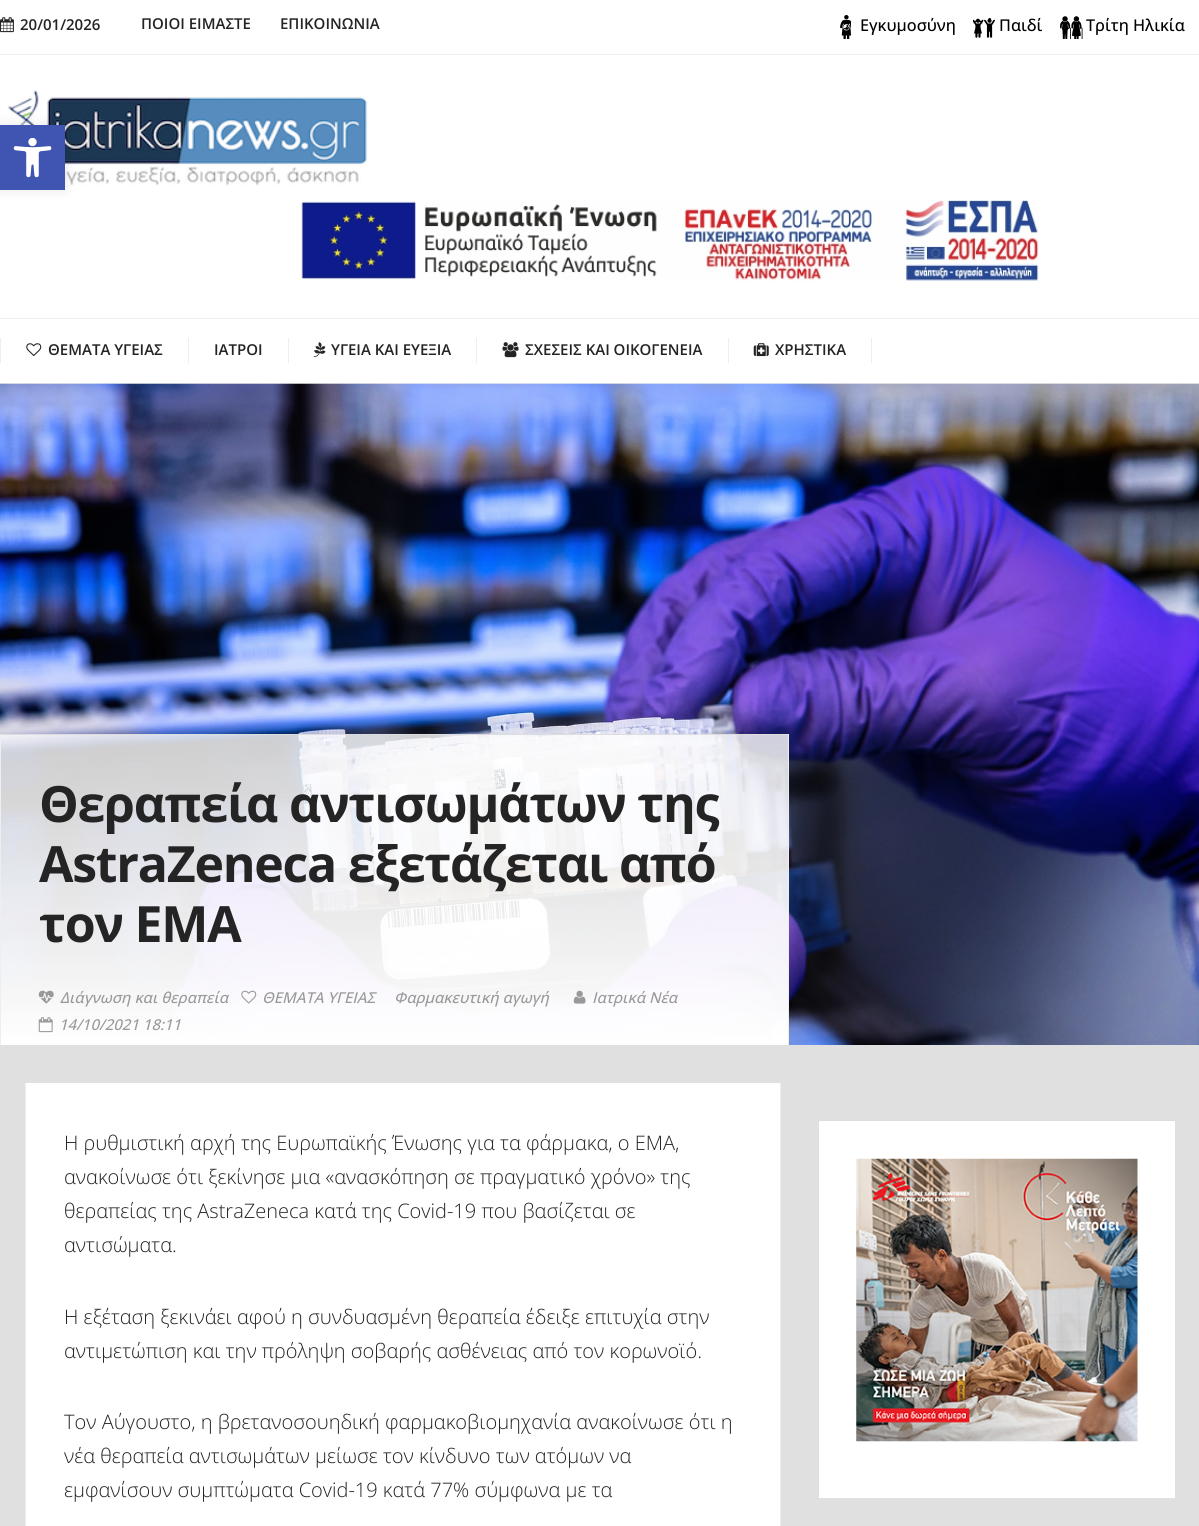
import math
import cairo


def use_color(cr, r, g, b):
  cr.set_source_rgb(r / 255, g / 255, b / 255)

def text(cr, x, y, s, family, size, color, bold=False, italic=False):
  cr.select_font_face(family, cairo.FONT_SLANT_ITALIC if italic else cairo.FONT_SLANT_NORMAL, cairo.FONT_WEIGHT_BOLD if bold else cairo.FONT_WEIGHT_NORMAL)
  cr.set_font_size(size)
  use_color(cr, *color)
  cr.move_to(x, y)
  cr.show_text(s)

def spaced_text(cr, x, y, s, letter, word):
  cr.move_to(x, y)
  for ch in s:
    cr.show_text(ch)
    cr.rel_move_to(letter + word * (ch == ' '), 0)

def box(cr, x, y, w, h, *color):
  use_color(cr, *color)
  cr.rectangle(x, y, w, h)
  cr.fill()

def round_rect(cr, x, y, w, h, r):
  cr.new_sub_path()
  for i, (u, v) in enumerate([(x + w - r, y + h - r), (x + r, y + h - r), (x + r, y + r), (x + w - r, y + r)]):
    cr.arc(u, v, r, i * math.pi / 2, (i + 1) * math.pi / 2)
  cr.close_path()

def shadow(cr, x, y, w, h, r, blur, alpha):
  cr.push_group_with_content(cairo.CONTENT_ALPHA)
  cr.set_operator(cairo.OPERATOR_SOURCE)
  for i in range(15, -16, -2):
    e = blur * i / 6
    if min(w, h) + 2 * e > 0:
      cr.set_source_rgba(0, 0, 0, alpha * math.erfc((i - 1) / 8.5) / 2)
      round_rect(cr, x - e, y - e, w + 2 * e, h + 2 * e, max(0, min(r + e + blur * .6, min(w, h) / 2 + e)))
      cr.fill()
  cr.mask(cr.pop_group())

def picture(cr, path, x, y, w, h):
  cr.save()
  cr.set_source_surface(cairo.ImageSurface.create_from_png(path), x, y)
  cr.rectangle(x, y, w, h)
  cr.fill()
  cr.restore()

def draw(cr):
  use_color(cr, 224, 224, 224)
  cr.paint()
  box(cr, 0, 0, 1199, 383, 255, 255, 255)
  box(cr, 0, 54, 1199, 1, 238, 238, 238)
  picture(cr, "img_01.png", 0, 17, 14, 16)
  picture(cr, "img_02.png", 840, 15, 11, 24)
  picture(cr, "img_03.png", 973, 18, 22, 20)
  picture(cr, "img_04.png", 1060, 16, 23, 23)
  picture(cr, "img_05.png", 7, 90, 361, 96)
  picture(cr, "img_06.png", 301, 199, 738, 82)
  box(cr, 0, 318, 1199, 1, 238, 238, 238)
  box(cr, 0, 383, 1199, 1, 238, 238, 238)
  box(cr, 188, 338, 1, 25, 238, 238, 238)
  box(cr, 0, 338, 1, 25, 238, 238, 238)
  picture(cr, "img_07.png", 26, 343, 16, 13)
  box(cr, 288, 338, 1, 25, 238, 238, 238)
  box(cr, 476, 338, 1, 25, 238, 238, 238)
  picture(cr, "img_08.png", 313, 342, 13, 16)
  box(cr, 728, 338, 1, 25, 238, 238, 238)
  picture(cr, "img_09.png", 502, 342, 17, 16)
  box(cr, 871, 338, 1, 25, 238, 238, 238)
  picture(cr, "img_10.png", 753, 343, 16, 14)
  picture(cr, "img_11.png", 0, 383, 1199, 662)
  box(cr, 0, 734, 789, 1, 221, 221, 221)
  box(cr, 788, 734, 1, 311, 238, 238, 238)
  box(cr, 0, 734, 1, 311, 238, 238, 238)
  picture(cr, "img_12.png", 38, 990, 16, 14)
  picture(cr, "img_13.png", 241, 990, 16, 14)
  picture(cr, "img_14.png", 573, 990, 13, 14)
  picture(cr, "img_15.png", 38, 1017, 15, 16)
  box(cr, 26, 1083, 754, 443, 255, 255, 255)
  box(cr, 780, 1083, 1, 443, 238, 238, 238)
  box(cr, 25, 1083, 1, 443, 238, 238, 238)
  box(cr, 819, 1121, 356, 377, 255, 255, 255)
  box(cr, 819, 1120, 356, 1, 221, 221, 221)
  picture(cr, "img_16.png", 856, 1158, 282, 284)
  use_color(cr, 0, 0, 0)
  shadow(cr, 0, 125, 65, 65, 0, 6, 0.1)
  box(cr, 0, 125, 65, 65, 64, 84, 178)
  picture(cr, "img_17.png", 13, 138, 39, 40)
  text(cr, 20, 30, "20/01/2026", "Open Sans SemiBold", 15, (36, 36, 36))
  text(cr, 141, 29, "ΠΟΙΟΙ ΕΙΜΑΣΤΕ", "Open Sans SemiBold", 15, (36, 36, 36))
  text(cr, 280, 29, "ΕΠΙΚΟΙΝΩΝΙΑ", "Open Sans SemiBold", 15, (36, 36, 36))
  text(cr, 860, 31, "Εγκυμοσύνη", "Open Sans Medium", 16.25, (0, 0, 0))
  text(cr, 999, 31, "Παιδί", "Open Sans Medium", 16.25, (0, 0, 0))
  text(cr, 1086, 31, "Τρίτη Ηλικία", "Open Sans Medium", 16.25, (0, 0, 0))
  text(cr, 48, 355, "ΘΕΜΑΤΑ ΥΓΕΙΑΣ", "Open Sans SemiBold", 15, (36, 36, 36))
  text(cr, 214, 355, "ΙΑΤΡΟΙ", "Open Sans SemiBold", 15, (36, 36, 36))
  text(cr, 331, 355, "ΥΓΕΙΑ ΚΑΙ ΕΥΕΞΙΑ", "Open Sans SemiBold", 15, (36, 36, 36))
  text(cr, 525, 355, "ΣΧΕΣΕΙΣ ΚΑΙ ΟΙΚΟΓΕΝΕΙΑ", "Open Sans SemiBold", 15, (36, 36, 36))
  text(cr, 775, 355, "ΧΡΗΣΤΙΚΑ", "Open Sans SemiBold", 15, (36, 36, 36))
  cr.select_font_face("Open Sans", cairo.FONT_SLANT_NORMAL, cairo.FONT_WEIGHT_BOLD)
  cr.set_font_size(50)
  spaced_text(cr, 39, 822, "Θεραπεία αντισωμάτων της", -1.25, 0)
  spaced_text(cr, 39, 882, "AstraZeneca εξετάζεται από", -1.25, 0)
  spaced_text(cr, 39, 942, "τον ΕΜΑ", -1.25, 0)
  text(cr, 60, 1003, "Διάγνωση και θεραπεία", "Open Sans Medium", 15, (153, 153, 153), italic=True)
  text(cr, 262, 1003, "ΘΕΜΑΤΑ ΥΓΕΙΑΣ", "Open Sans Medium", 15, (153, 153, 153), italic=True)
  text(cr, 394, 1003, "Φαρμακευτική αγωγή", "Open Sans Medium", 15, (153, 153, 153), italic=True)
  text(cr, 592, 1003, "Ιατρικά Νέα", "Open Sans Medium", 15, (153, 153, 153), italic=True)
  text(cr, 59, 1030, "14/10/2021 18:11", "Open Sans Medium", 15, (153, 153, 153), italic=True)
  text(cr, 64, 1150, "Η ρυθμιστική αρχή της Ευρωπαϊκής Ένωσης για τα φάρμακα, ο ΕΜΑ,", "Open Sans Light", 20, (36, 36, 36))
  text(cr, 64, 1184, "ανακοίνωσε ότι ξεκίνησε μια «ανασκόπηση σε πραγματικό χρόνο» της", "Open Sans Light", 20, (36, 36, 36))
  text(cr, 64, 1218, "θεραπείας της AstraZeneca κατά της Covid-19 που βασίζεται σε", "Open Sans Light", 20, (36, 36, 36))
  text(cr, 64, 1252, "αντισώματα.", "Open Sans Light", 20, (36, 36, 36))
  text(cr, 64, 1324, "Η εξέταση ξεκινάει αφού η συνδυασμένη θεραπεία έδειξε επιτυχία στην", "Open Sans Light", 20, (36, 36, 36))
  text(cr, 64, 1358, "αντιμετώπιση και την πρόληψη σοβαρής ασθένειας από τον κορωνοϊό.", "Open Sans Light", 20, (36, 36, 36))
  text(cr, 64, 1429, "Τον Αύγουστο, η βρετανοσουηδική φαρμακοβιομηχανία ανακοίνωσε ότι η", "Open Sans Light", 20, (36, 36, 36))
  text(cr, 64, 1463, "νέα θεραπεία αντισωμάτων μείωσε τον κίνδυνο των ατόμων να", "Open Sans Light", 20, (36, 36, 36))
  text(cr, 64, 1497, "εμφανίσουν συμπτώματα Covid-19 κατά 77% σύμφωνα με τα", "Open Sans Light", 20, (36, 36, 36))


surface = cairo.ImageSurface(cairo.FORMAT_RGB24, 1199, 1526)
cr = cairo.Context(surface)
options = cairo.FontOptions()
options.set_hint_metrics(cairo.HINT_METRICS_OFF)
options.set_hint_style(cairo.HINT_STYLE_NONE)
cr.set_font_options(options)
cr.set_miter_limit(4)
draw(cr)
surface.write_to_png("out.png")
